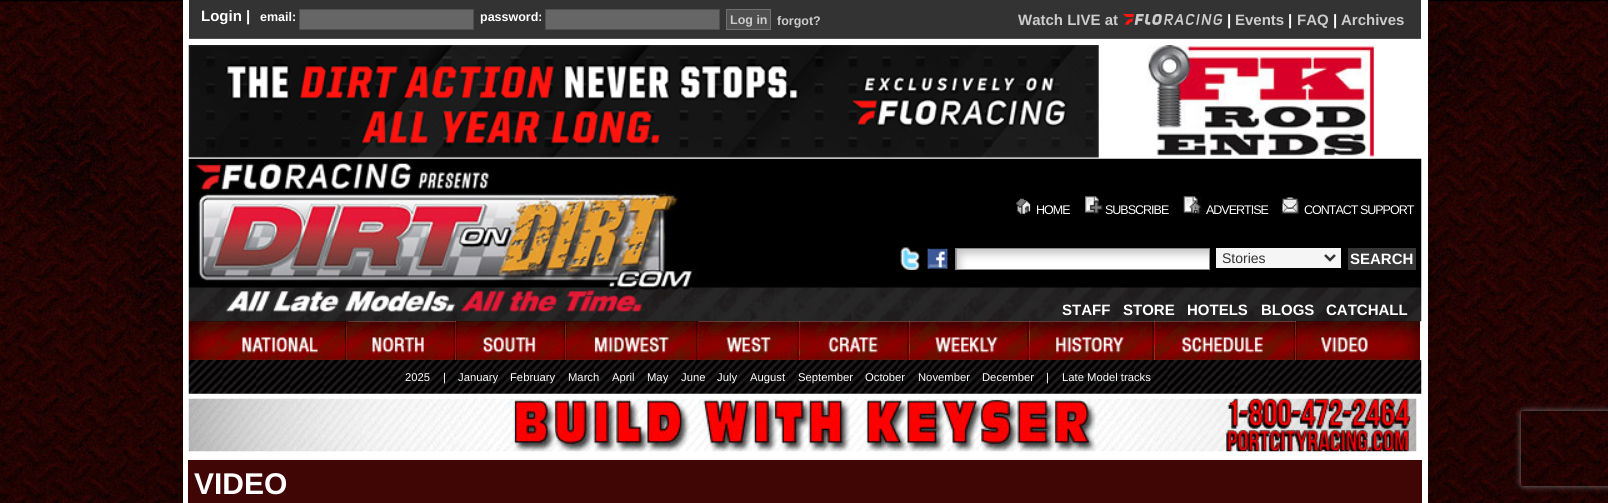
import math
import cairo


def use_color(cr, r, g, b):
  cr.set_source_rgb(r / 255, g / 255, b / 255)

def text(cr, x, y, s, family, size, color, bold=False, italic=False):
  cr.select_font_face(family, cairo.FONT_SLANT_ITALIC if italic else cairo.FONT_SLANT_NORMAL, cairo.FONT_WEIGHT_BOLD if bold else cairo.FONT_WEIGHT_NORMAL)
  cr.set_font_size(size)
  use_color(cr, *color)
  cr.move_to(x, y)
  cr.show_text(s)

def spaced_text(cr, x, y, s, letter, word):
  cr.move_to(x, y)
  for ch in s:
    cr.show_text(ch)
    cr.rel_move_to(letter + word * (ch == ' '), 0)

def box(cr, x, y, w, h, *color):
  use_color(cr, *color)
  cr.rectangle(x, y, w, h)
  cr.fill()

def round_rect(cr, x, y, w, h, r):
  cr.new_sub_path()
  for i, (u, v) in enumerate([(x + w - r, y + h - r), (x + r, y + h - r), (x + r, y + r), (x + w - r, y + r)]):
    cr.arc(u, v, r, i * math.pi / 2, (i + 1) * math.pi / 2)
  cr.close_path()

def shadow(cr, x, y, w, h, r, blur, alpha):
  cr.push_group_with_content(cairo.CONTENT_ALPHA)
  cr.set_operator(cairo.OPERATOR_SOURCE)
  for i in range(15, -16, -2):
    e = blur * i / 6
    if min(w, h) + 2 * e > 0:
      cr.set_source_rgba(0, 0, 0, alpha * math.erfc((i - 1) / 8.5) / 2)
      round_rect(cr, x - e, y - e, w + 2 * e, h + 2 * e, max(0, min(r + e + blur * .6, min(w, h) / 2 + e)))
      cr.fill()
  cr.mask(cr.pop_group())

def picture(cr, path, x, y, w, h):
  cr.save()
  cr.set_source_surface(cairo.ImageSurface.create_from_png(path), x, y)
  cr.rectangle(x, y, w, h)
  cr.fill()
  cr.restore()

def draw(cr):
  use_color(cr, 255, 255, 255)
  cr.paint()
  picture(cr, "img_01.png", 0, 0, 1608, 503)
  box(cr, 183, 0, 1245, 503, 255, 255, 255)
  box(cr, 189, 0, 1232, 38, 51, 51, 51)
  box(cr, 189, 38, 1232, 1, 79, 79, 79)
  use_color(cr, 102, 102, 102)
  cr.rectangle(299.5, 9.5, 174, 20)
  cr.fill_preserve()
  use_color(cr, 79, 79, 79)
  cr.set_line_width(1)
  cr.stroke()
  use_color(cr, 102, 102, 102)
  cr.rectangle(545.5, 9.5, 174, 20)
  cr.fill_preserve()
  use_color(cr, 79, 79, 79)
  cr.stroke()
  cr.rectangle(726.5, 9.5, 44, 20)
  cr.fill_preserve()
  use_color(cr, 111, 111, 111)
  cr.stroke()
  picture(cr, "img_02.png", 1123, 14, 100, 11)
  picture(cr, "img_03.png", 188, 45, 911, 113)
  picture(cr, "img_04.png", 1147, 45, 229, 113)
  picture(cr, "img_05.png", 188, 158, 1234, 164)
  picture(cr, "img_06.png", 1016, 198, 15, 16)
  picture(cr, "img_07.png", 1085, 196, 18, 18)
  picture(cr, "img_08.png", 1183, 196, 19, 18)
  picture(cr, "img_09.png", 1282, 197, 17, 17)
  picture(cr, "img_10.png", 900, 247, 20, 23)
  picture(cr, "img_11.png", 927, 248, 21, 21)
  picture(cr, "img_12.png", 956, 249, 253, 20)
  cr.rectangle(955.5, 248.5, 254, 21)
  use_color(cr, 137, 137, 137)
  cr.stroke()
  box(cr, 1216, 248, 125, 20, 245, 245, 245)
  cr.new_path()
  cr.move_to(1325, 255)
  cr.line_to(1330, 260)
  cr.line_to(1335, 255)
  use_color(cr, 51, 51, 51)
  cr.set_line_width(2.5)
  cr.stroke()
  box(cr, 1348, 248, 68, 22, 54, 54, 54)
  box(cr, 189, 321, 159, 39, 0, 0, 0)
  picture(cr, "img_13.png", 188, 321, 160, 39)
  picture(cr, "img_14.png", 347, 321, 109, 39)
  box(cr, 456, 321, 243, 39, 0, 0, 0)
  picture(cr, "img_15.png", 456, 321, 110, 39)
  picture(cr, "img_16.png", 566, 321, 133, 39)
  picture(cr, "img_17.png", 698, 321, 102, 39)
  picture(cr, "img_18.png", 800, 321, 110, 39)
  picture(cr, "img_19.png", 910, 321, 120, 39)
  picture(cr, "img_20.png", 1030, 321, 125, 39)
  picture(cr, "img_21.png", 1155, 321, 141, 39)
  box(cr, 1296, 321, 124, 39, 0, 0, 0)
  picture(cr, "img_22.png", 1296, 321, 124, 39)
  picture(cr, "img_23.png", 188, 360, 1234, 34)
  picture(cr, "img_24.png", 188, 398, 1229, 54)
  box(cr, 188, 460, 1234, 43, 64, 6, 5)
  cr.save()
  cr.set_fill_rule(cairo.FILL_RULE_EVEN_ODD)
  cr.new_path()
  cr.move_to(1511, 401)
  cr.line_to(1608, 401)
  cr.line_to(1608, 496)
  cr.line_to(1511, 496)
  cr.close_path()
  cr.move_to(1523.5, 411)
  cr.line_to(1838.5, 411)
  cr.curve_to(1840, 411, 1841, 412, 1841, 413.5)
  cr.line_to(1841, 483.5)
  cr.curve_to(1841, 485, 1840, 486, 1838.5, 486)
  cr.line_to(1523.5, 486)
  cr.curve_to(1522, 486, 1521, 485, 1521, 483.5)
  cr.line_to(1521, 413.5)
  cr.curve_to(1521, 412, 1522, 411, 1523.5, 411)
  cr.close_path()
  cr.clip()
  use_color(cr, 128, 128, 128)
  shadow(cr, 1521, 411, 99, 75, 2.5, 3, 1)
  cr.restore()
  text(cr, 201, 21, "Login |", "Liberation Sans", 15, (255, 255, 255), bold=True)
  text(cr, 260, 21, "email:", "Liberation Sans", 12.5, (255, 255, 255), bold=True)
  text(cr, 480, 21, "password:", "Liberation Sans", 12.5, (255, 255, 255), bold=True)
  text(cr, 730, 24, "Log in", "Liberation Sans", 12.5, (204, 204, 204), bold=True)
  text(cr, 777, 25, "forgot?", "Liberation Sans", 12.5, (204, 204, 204), bold=True)
  text(cr, 1018, 25, "Watch LIVE at", "Liberation Sans", 15, (204, 204, 204), bold=True)
  text(cr, 1227, 25, "|", "Liberation Sans", 15, (255, 255, 255), bold=True)
  text(cr, 1235, 25, "Events", "Liberation Sans", 15, (204, 204, 204), bold=True)
  text(cr, 1288, 25, "|", "Liberation Sans", 15, (255, 255, 255), bold=True)
  text(cr, 1297, 25, "FAQ", "Liberation Sans", 15, (204, 204, 204), bold=True)
  text(cr, 1333, 25, "|", "Liberation Sans", 15, (255, 255, 255), bold=True)
  text(cr, 1341, 25, "Archives", "Liberation Sans", 15, (204, 204, 204), bold=True)
  cr.select_font_face("Liberation Sans")
  cr.set_font_size(12.5)
  use_color(cr, 255, 255, 255)
  spaced_text(cr, 1036, 214, "HOME", -1, 0)
  spaced_text(cr, 1105, 214, "SUBSCRIBE", -1, 0)
  spaced_text(cr, 1206, 214, "ADVERTISE", -1, 0)
  spaced_text(cr, 1304, 214, "CONTACT SUPPORT", -1, 0)
  text(cr, 1222, 263, "Stories", "Liberation Sans", 14, (51, 51, 51))
  text(cr, 1350, 264, "SEARCH", "Liberation Sans", 15, (255, 255, 255), bold=True)
  text(cr, 1062, 315, "STAFF", "Liberation Sans", 15, (255, 255, 255), bold=True)
  text(cr, 1123, 315, "STORE", "Liberation Sans", 15, (255, 255, 255), bold=True)
  text(cr, 1187, 315, "HOTELS", "Liberation Sans", 15, (255, 255, 255), bold=True)
  text(cr, 1261, 315, "BLOGS", "Liberation Sans", 15, (255, 255, 255), bold=True)
  text(cr, 1326, 315, "CATCHALL", "Liberation Sans", 15, (255, 255, 255), bold=True)
  text(cr, 405, 381, "2025", "Liberation Sans", 11.25, (255, 255, 255))
  text(cr, 443, 381, "|", "Liberation Sans", 11.25, (255, 255, 255))
  text(cr, 458, 381, "January", "Liberation Sans", 11.25, (255, 255, 255))
  text(cr, 510, 381, "February", "Liberation Sans", 11.25, (255, 255, 255))
  text(cr, 568, 381, "March", "Liberation Sans", 11.25, (255, 255, 255))
  text(cr, 612, 381, "April", "Liberation Sans", 11.25, (255, 255, 255))
  text(cr, 647, 381, "May", "Liberation Sans", 11.25, (255, 255, 255))
  text(cr, 681, 381, "June", "Liberation Sans", 11.25, (255, 255, 255))
  text(cr, 717, 381, "July", "Liberation Sans", 11.25, (255, 255, 255))
  text(cr, 750, 381, "August", "Liberation Sans", 11.25, (255, 255, 255))
  text(cr, 798, 381, "September", "Liberation Sans", 11.25, (255, 255, 255))
  text(cr, 865, 381, "October", "Liberation Sans", 11.25, (255, 255, 255))
  text(cr, 918, 381, "November", "Liberation Sans", 11.25, (255, 255, 255))
  text(cr, 982, 381, "December", "Liberation Sans", 11.25, (255, 255, 255))
  text(cr, 1046, 381, "|", "Liberation Sans", 11.25, (255, 255, 255))
  text(cr, 1062, 381, "Late Model tracks", "Liberation Sans", 11.25, (255, 255, 255))
  text(cr, 194, 494, "VIDEO", "Liberation Sans", 30, (255, 255, 255), bold=True)


surface = cairo.ImageSurface(cairo.FORMAT_RGB24, 1608, 503)
cr = cairo.Context(surface)
options = cairo.FontOptions()
options.set_hint_metrics(cairo.HINT_METRICS_OFF)
options.set_hint_style(cairo.HINT_STYLE_NONE)
cr.set_font_options(options)
cr.set_miter_limit(4)
draw(cr)
surface.write_to_png("out.png")
